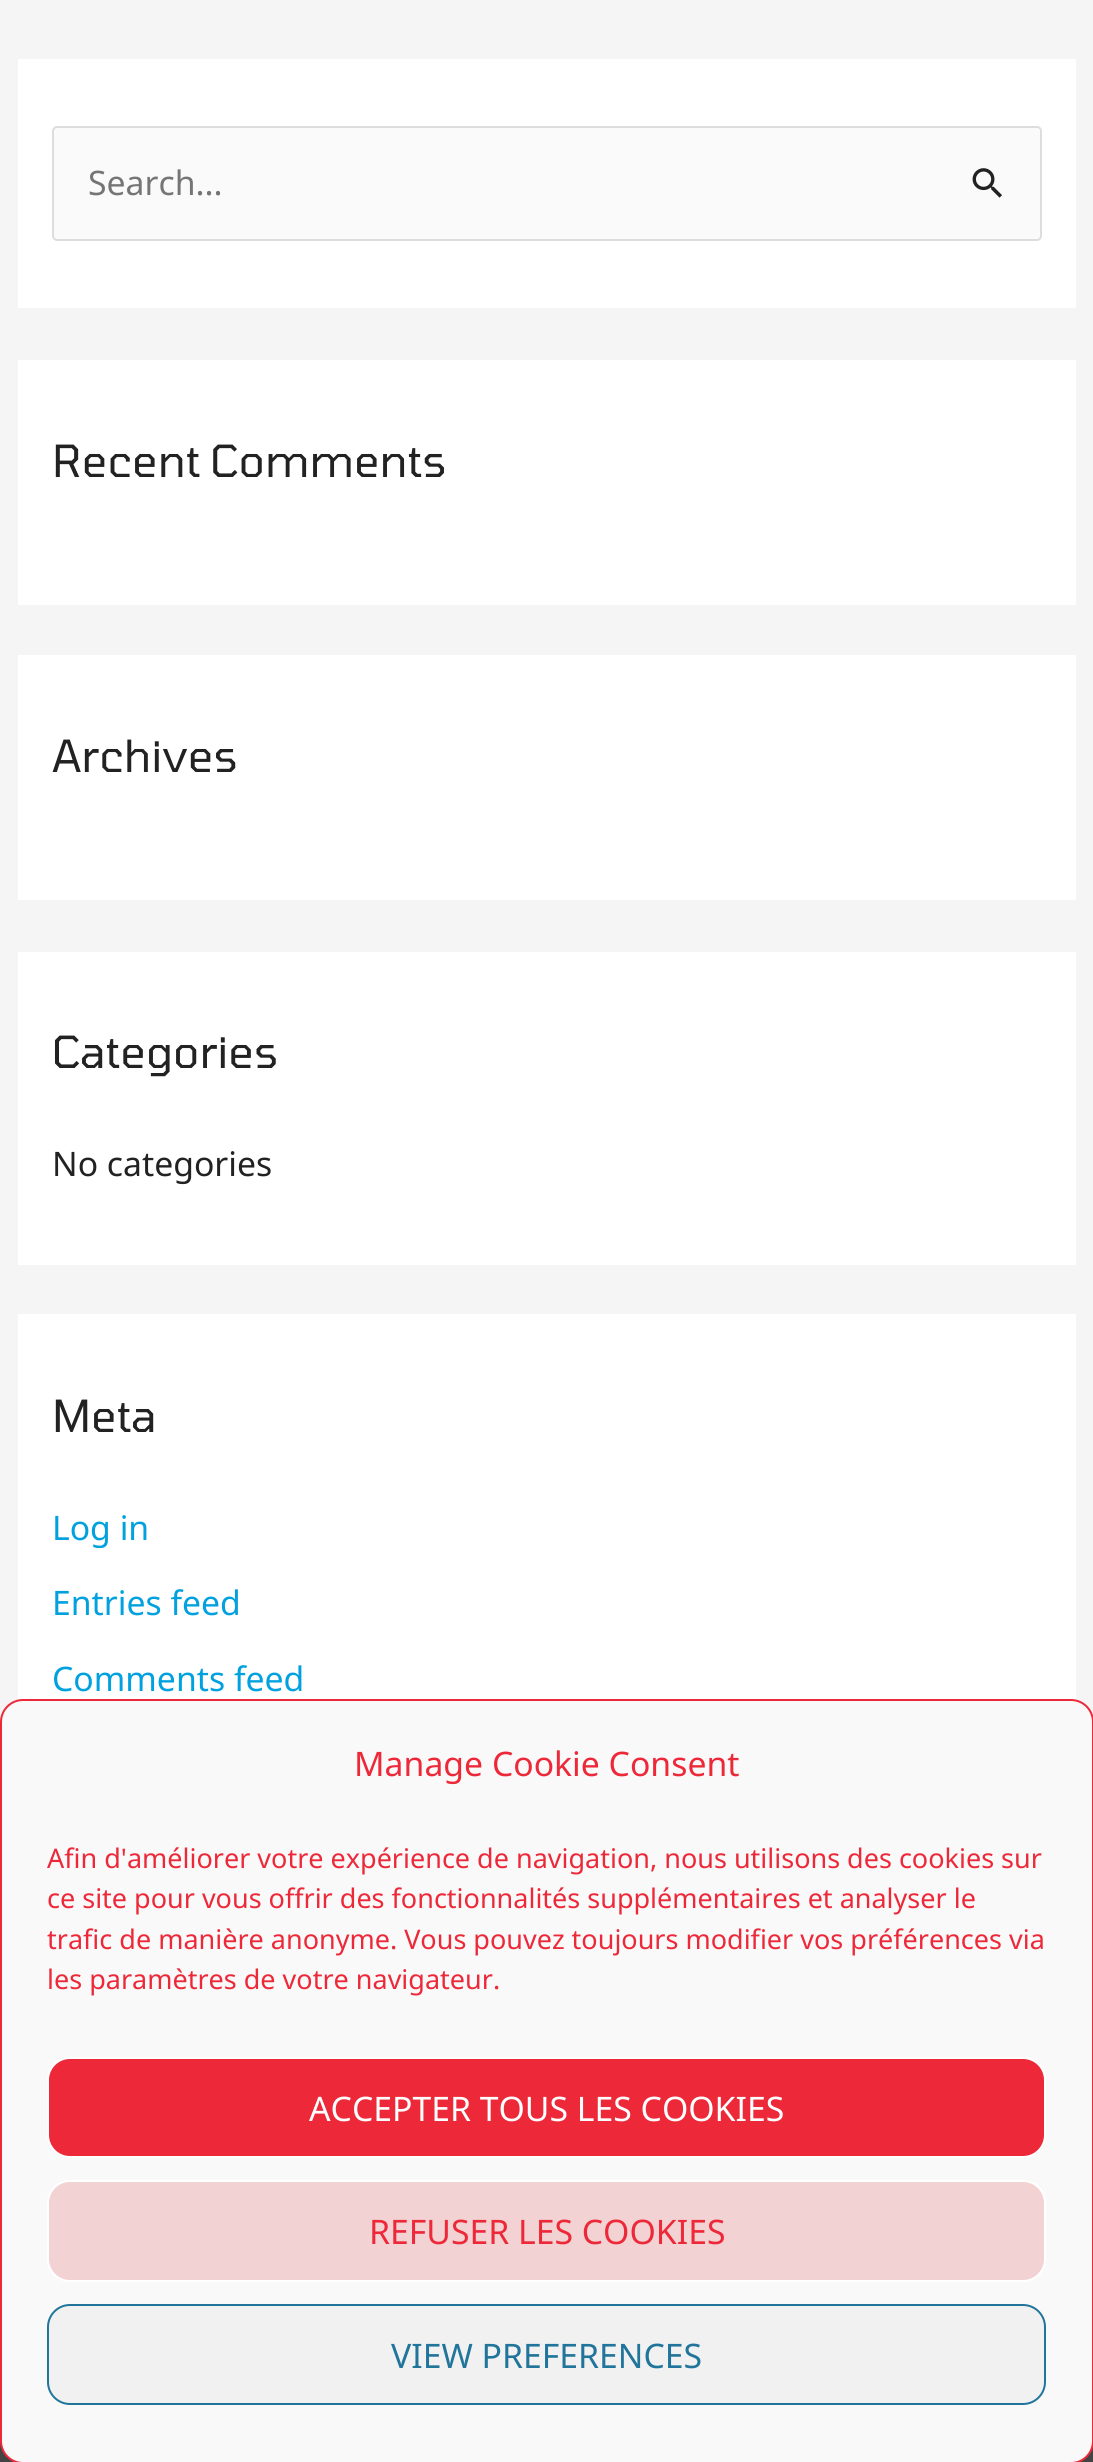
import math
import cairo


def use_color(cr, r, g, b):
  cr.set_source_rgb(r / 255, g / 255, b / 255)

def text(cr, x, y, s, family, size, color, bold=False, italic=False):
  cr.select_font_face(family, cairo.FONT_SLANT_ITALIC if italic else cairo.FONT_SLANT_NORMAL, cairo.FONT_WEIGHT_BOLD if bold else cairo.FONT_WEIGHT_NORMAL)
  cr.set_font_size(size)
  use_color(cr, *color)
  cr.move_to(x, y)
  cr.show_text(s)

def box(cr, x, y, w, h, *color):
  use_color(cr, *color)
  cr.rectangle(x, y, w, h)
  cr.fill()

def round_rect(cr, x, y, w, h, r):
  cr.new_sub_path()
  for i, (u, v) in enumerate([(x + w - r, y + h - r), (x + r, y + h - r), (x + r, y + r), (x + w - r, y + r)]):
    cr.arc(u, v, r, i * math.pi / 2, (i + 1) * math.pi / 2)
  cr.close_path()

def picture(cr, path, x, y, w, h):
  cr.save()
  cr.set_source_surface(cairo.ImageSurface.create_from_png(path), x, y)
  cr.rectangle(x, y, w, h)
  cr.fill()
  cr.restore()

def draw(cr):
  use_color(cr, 245, 245, 245)
  cr.paint()
  box(cr, 18, 59, 1058, 249, 255, 255, 255)
  use_color(cr, 250, 250, 250)
  round_rect(cr, 53, 127, 988, 113, 4)
  cr.fill_preserve()
  use_color(cr, 221, 221, 221)
  cr.stroke()
  picture(cr, "img_01.png", 972, 168, 30, 30)
  box(cr, 18, 360, 1058, 245, 255, 255, 255)
  box(cr, 18, 655, 1058, 245, 255, 255, 255)
  box(cr, 18, 952, 1058, 313, 255, 255, 255)
  box(cr, 18, 1314, 1058, 386, 255, 255, 255)
  box(cr, 0, 2441, 1093, 21, 67, 67, 67)
  use_color(cr, 249, 249, 249)
  round_rect(cr, 1, 1700, 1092, 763, 22)
  cr.fill_preserve()
  use_color(cr, 237, 41, 57)
  cr.stroke()
  round_rect(cr, 48, 2058, 997, 99, 22)
  cr.fill_preserve()
  use_color(cr, 255, 255, 255)
  cr.stroke()
  use_color(cr, 242, 210, 210)
  round_rect(cr, 48, 2181, 997, 100, 22)
  cr.fill_preserve()
  use_color(cr, 255, 255, 255)
  cr.stroke()
  use_color(cr, 241, 241, 241)
  round_rect(cr, 48, 2305, 997, 99, 22)
  cr.fill_preserve()
  use_color(cr, 33, 117, 155)
  cr.stroke()
  text(cr, 88, 195, "Search...", "Noto Sans", 33.75, (117, 117, 117))
  text(cr, 52, 477, "Recent Comments", "Tomorrow", 44, (34, 34, 34))
  text(cr, 52, 772, "Archives", "Tomorrow", 44, (34, 34, 34))
  text(cr, 52, 1068, "Categories", "Tomorrow", 44, (34, 34, 34))
  text(cr, 52, 1176, "No categories", "Noto Sans", 33.75, (34, 34, 34))
  text(cr, 52, 1432, "Meta", "Tomorrow", 44, (34, 34, 34))
  text(cr, 52, 1540, "Log in", "Noto Sans", 33.75, (0, 161, 222))
  text(cr, 52, 1615, "Entries feed", "Noto Sans", 33.75, (0, 161, 222))
  text(cr, 52, 1691, "Comments feed", "Noto Sans", 33.75, (0, 161, 222))
  text(cr, 354, 1776, "Manage Cookie Consent", "Noto Sans", 33.75, (237, 41, 57))
  text(cr, 47, 1868, "Afin d'améliorer votre expérience de navigation, nous utilisons des cookies sur", "Noto Sans", 27, (237, 41, 57))
  text(cr, 47, 1908, "ce site pour vous offrir des fonctionnalités supplémentaires et analyser le", "Noto Sans", 27, (237, 41, 57))
  text(cr, 47, 1949, "trafic de manière anonyme. Vous pouvez toujours modifier vos préférences via", "Noto Sans", 27, (237, 41, 57))
  text(cr, 47, 1989, "les paramètres de votre navigateur.", "Noto Sans", 27, (237, 41, 57))
  text(cr, 309, 2121, "ACCEPTER TOUS LES COOKIES", "Noto Sans", 33.75, (255, 255, 255))
  text(cr, 369, 2244, "REFUSER LES COOKIES", "Noto Sans", 33.75, (237, 41, 57))
  text(cr, 391, 2368, "VIEW PREFERENCES", "Noto Sans", 33.75, (33, 117, 155))


surface = cairo.ImageSurface(cairo.FORMAT_RGB24, 1093, 2462)
cr = cairo.Context(surface)
options = cairo.FontOptions()
options.set_hint_metrics(cairo.HINT_METRICS_OFF)
options.set_hint_style(cairo.HINT_STYLE_NONE)
cr.set_font_options(options)
cr.set_miter_limit(4)
draw(cr)
surface.write_to_png("out.png")
